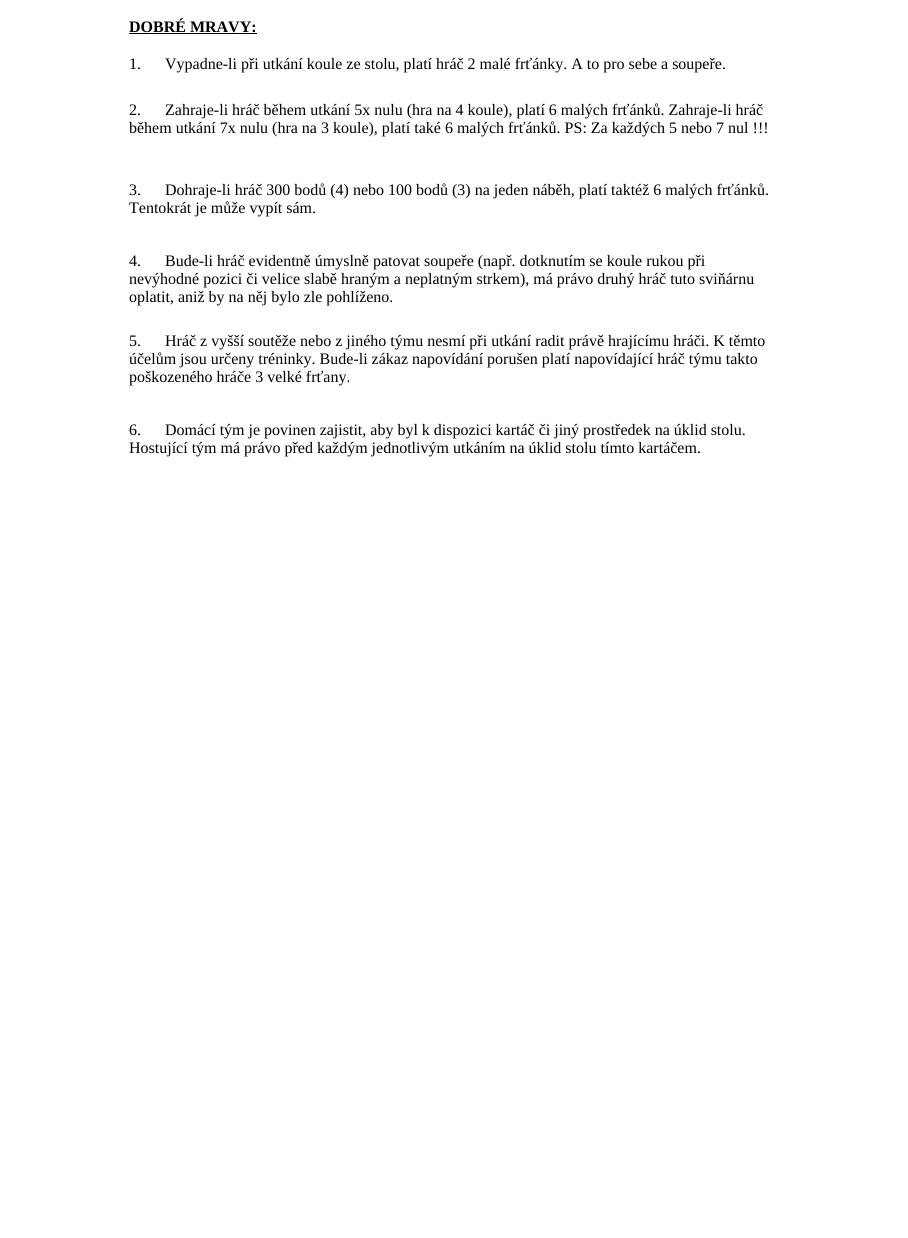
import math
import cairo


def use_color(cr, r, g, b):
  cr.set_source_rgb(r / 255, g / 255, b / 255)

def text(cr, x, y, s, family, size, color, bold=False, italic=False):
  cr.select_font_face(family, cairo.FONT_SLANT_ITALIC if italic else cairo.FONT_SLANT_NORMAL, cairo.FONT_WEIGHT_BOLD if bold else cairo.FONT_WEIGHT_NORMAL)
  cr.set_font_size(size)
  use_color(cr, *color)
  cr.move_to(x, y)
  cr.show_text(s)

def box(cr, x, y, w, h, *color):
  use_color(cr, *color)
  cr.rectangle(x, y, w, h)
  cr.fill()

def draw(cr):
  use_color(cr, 255, 255, 255)
  cr.paint()
  box(cr, 129, 33, 128, 1, 0, 0, 0)
  text(cr, 129, 32, "DOBRÉ MRAVY:", "Liberation Serif", 16, (0, 0, 0), bold=True)
  text(cr, 129, 69, "1.      Vypadne-li při utkání koule ze stolu, platí hráč 2 malé frťánky. A to pro sebe a soupeře.", "Liberation Serif", 16, (0, 0, 0))
  text(cr, 129, 115, "2.      Zahraje-li hráč během utkání 5x nulu (hra na 4 koule), platí 6 malých frťánků. Zahraje-li hráč", "Liberation Serif", 16, (0, 0, 0))
  text(cr, 129, 133, "během utkání 7x nulu (hra na 3 koule), platí také 6 malých frťánků. PS: Za každých 5 nebo 7 nul !!!", "Liberation Serif", 16, (0, 0, 0))
  text(cr, 129, 195, "3.      Dohraje-li hráč 300 bodů (4) nebo 100 bodů (3) na jeden náběh, platí taktéž 6 malých frťánků.", "Liberation Serif", 16, (0, 0, 0))
  text(cr, 129, 213, "Tentokrát je může vypít sám.", "Liberation Serif", 16, (0, 0, 0))
  text(cr, 129, 266, "4.      Bude-li hráč evidentně úmyslně patovat soupeře (např. dotknutím se koule rukou při", "Liberation Serif", 16, (0, 0, 0))
  text(cr, 129, 284, "nevýhodné pozici či velice slabě hraným a neplatným strkem), má právo druhý hráč tuto sviňárnu", "Liberation Serif", 16, (0, 0, 0))
  text(cr, 129, 302, "oplatit, aniž by na něj bylo zle pohlíženo.", "Liberation Serif", 16, (0, 0, 0))
  text(cr, 129, 346, "5.      Hráč z vyšší soutěže nebo z jiného týmu nesmí při utkání radit právě hrajícímu hráči. K těmto", "Liberation Serif", 16, (0, 0, 0))
  text(cr, 129, 364, "účelům jsou určeny tréninky. Bude-li zákaz napovídání porušen platí napovídající hráč týmu takto", "Liberation Serif", 16, (0, 0, 0))
  text(cr, 129, 382, "poškozeného hráče 3 velké frťany.", "Liberation Serif", 16, (0, 0, 0))
  text(cr, 129, 435, "6.      Domácí tým je povinen zajistit, aby byl k dispozici kartáč či jiný prostředek na úklid stolu.", "Liberation Serif", 16, (0, 0, 0))
  text(cr, 129, 453, "Hostující tým má právo před každým jednotlivým utkáním na úklid stolu tímto kartáčem.", "Liberation Serif", 16, (0, 0, 0))


surface = cairo.ImageSurface(cairo.FORMAT_RGB24, 908, 1238)
cr = cairo.Context(surface)
options = cairo.FontOptions()
options.set_hint_metrics(cairo.HINT_METRICS_OFF)
options.set_hint_style(cairo.HINT_STYLE_NONE)
cr.set_font_options(options)
cr.set_miter_limit(4)
draw(cr)
surface.write_to_png("out.png")
